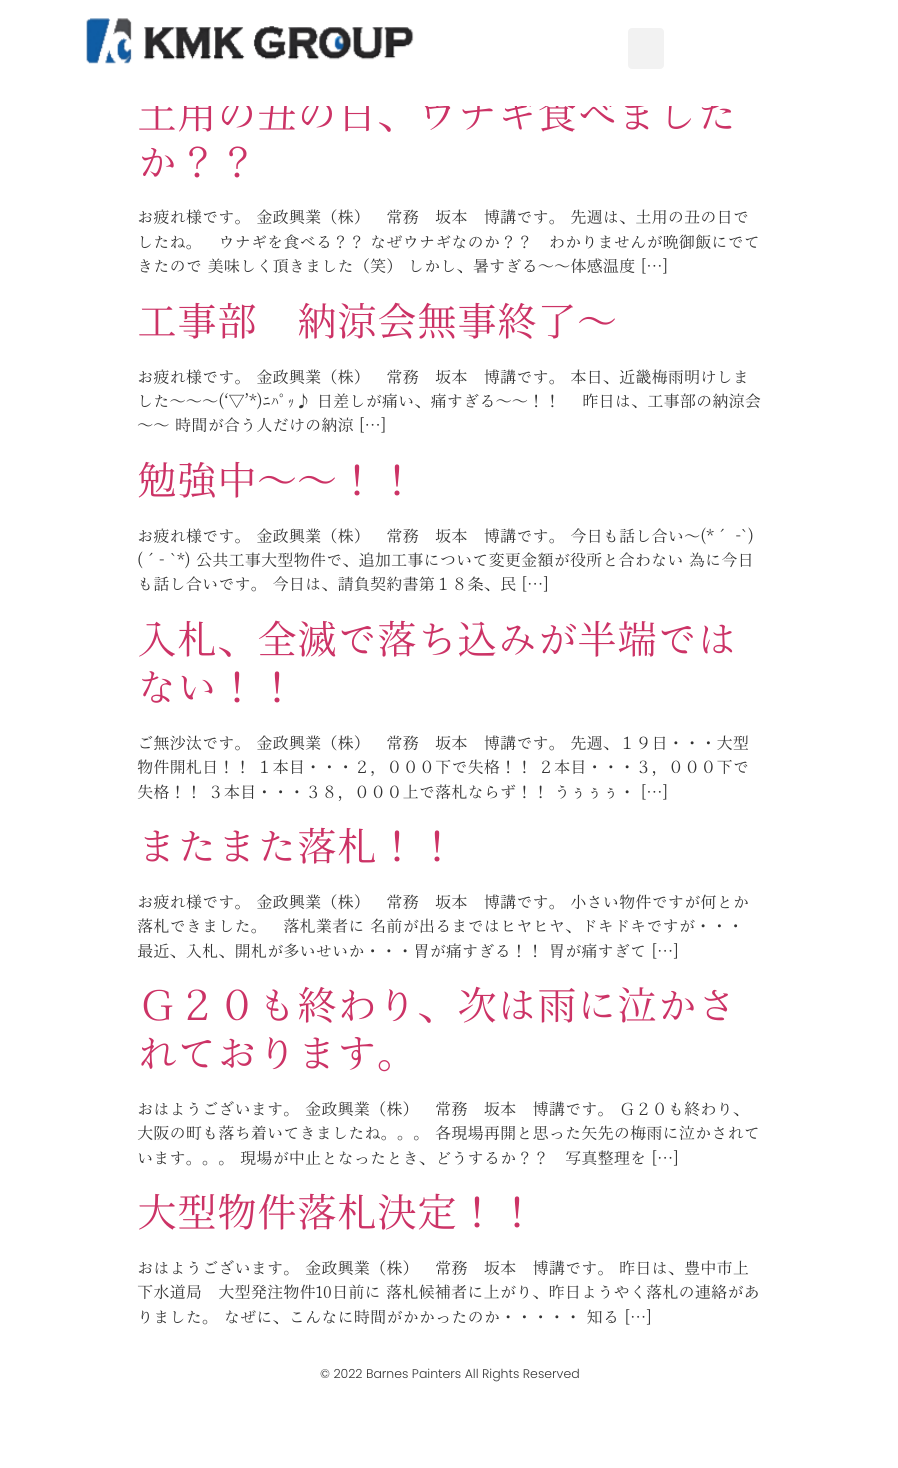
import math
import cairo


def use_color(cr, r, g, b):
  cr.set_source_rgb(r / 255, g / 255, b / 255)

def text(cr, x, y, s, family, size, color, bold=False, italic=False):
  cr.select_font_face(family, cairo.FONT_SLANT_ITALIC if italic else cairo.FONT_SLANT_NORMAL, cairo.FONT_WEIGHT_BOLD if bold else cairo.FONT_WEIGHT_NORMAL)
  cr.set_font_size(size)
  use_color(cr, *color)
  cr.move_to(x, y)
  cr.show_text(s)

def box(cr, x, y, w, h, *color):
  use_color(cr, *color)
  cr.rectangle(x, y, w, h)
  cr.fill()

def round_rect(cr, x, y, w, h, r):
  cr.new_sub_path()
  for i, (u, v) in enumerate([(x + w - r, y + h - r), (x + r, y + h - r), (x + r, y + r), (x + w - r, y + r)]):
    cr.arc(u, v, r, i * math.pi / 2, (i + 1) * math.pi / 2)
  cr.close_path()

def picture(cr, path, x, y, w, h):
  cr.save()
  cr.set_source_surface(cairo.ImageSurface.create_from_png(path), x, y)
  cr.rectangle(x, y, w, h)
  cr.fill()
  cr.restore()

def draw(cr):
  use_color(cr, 255, 255, 255)
  cr.paint()
  picture(cr, "img_01.png", 86, 18, 328, 46)
  use_color(cr, 242, 242, 242)
  round_rect(cr, 628, 28, 36, 41, 4)
  cr.fill()
  text(cr, 137, 129, "土用の丑の日、ウナギ食べました", "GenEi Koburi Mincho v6", 40, (204, 51, 102))
  box(cr, 155, 95, 565, 11, 255, 255, 255)
  text(cr, 137, 177, "か？？", "GenEi Koburi Mincho v6", 40, (204, 51, 102))
  text(cr, 137, 223, "お疲れ様です。 金政興業（株）　常務　坂本　博講です。 先週は、土用の丑の日で", "GenEi Koburi Mincho v6", 16.25, (51, 51, 51))
  text(cr, 137, 248, "したね。　ウナギを食べる？？ なぜウナギなのか？？　わかりませんが晩御飯にでて", "GenEi Koburi Mincho v6", 16.25, (51, 51, 51))
  text(cr, 137, 272, "きたので 美味しく頂きました（笑） しかし、暑すぎる～～体感温度 […]", "GenEi Koburi Mincho v6", 16.25, (51, 51, 51))
  text(cr, 137, 336, "工事部　納涼会無事終了～", "GenEi Koburi Mincho v6", 40, (204, 51, 102))
  text(cr, 137, 383, "お疲れ様です。 金政興業（株）　常務　坂本　博講です。 本日、近畿梅雨明けしま", "GenEi Koburi Mincho v6", 16.25, (51, 51, 51))
  text(cr, 137, 407, "した～～～(‘▽’*)ﾆﾊﾟｯ♪ 日差しが痛い、痛すぎる～～！！　 昨日は、工事部の納涼会", "GenEi Koburi Mincho v6", 16.25, (51, 51, 51))
  text(cr, 137, 431, "～～ 時間が合う人だけの納涼 […]", "GenEi Koburi Mincho v6", 16.25, (51, 51, 51))
  text(cr, 137, 495, "勉強中～～！！", "GenEi Koburi Mincho v6", 40, (204, 51, 102))
  text(cr, 137, 542, "お疲れ様です。 金政興業（株）　常務　坂本　博講です。 今日も話し合い～(*´ -`)", "GenEi Koburi Mincho v6", 16.25, (51, 51, 51))
  text(cr, 137, 566, "(´- `*) 公共工事大型物件で、追加工事について変更金額が役所と合わない 為に今日", "GenEi Koburi Mincho v6", 16.25, (51, 51, 51))
  text(cr, 137, 590, "も話し合いです。 今日は、請負契約書第１８条、民 […]", "GenEi Koburi Mincho v6", 16.25, (51, 51, 51))
  text(cr, 137, 654, "入札、全滅で落ち込みが半端では", "GenEi Koburi Mincho v6", 40, (204, 51, 102))
  text(cr, 137, 702, "ない！！", "GenEi Koburi Mincho v6", 40, (204, 51, 102))
  text(cr, 137, 749, "ご無沙汰です。 金政興業（株）　常務　坂本　博講です。 先週、１９日・・・大型", "GenEi Koburi Mincho v6", 16.25, (51, 51, 51))
  text(cr, 137, 773, "物件開札日！！ １本目・・・２，０００下で失格！！ ２本目・・・３，０００下で", "GenEi Koburi Mincho v6", 16.25, (51, 51, 51))
  text(cr, 137, 798, "失格！！ ３本目・・・３８，０００上で落札ならず！！ うぅぅぅ・ […]", "GenEi Koburi Mincho v6", 16.25, (51, 51, 51))
  text(cr, 137, 861, "またまた落札！！", "GenEi Koburi Mincho v6", 40, (204, 51, 102))
  text(cr, 137, 908, "お疲れ様です。 金政興業（株）　常務　坂本　博講です。 小さい物件ですが何とか", "GenEi Koburi Mincho v6", 16.25, (51, 51, 51))
  text(cr, 137, 932, "落札できました。　落札業者に 名前が出るまではヒヤヒヤ、ドキドキですが・・・", "GenEi Koburi Mincho v6", 16.25, (51, 51, 51))
  text(cr, 137, 957, "最近、入札、開札が多いせいか・・・胃が痛すぎる！！ 胃が痛すぎて […]", "GenEi Koburi Mincho v6", 16.25, (51, 51, 51))
  text(cr, 137, 1020, "Ｇ２０も終わり、次は雨に泣かさ", "GenEi Koburi Mincho v6", 40, (204, 51, 102))
  text(cr, 137, 1068, "れております。", "GenEi Koburi Mincho v6", 40, (204, 51, 102))
  text(cr, 137, 1115, "おはようございます。 金政興業（株）　常務　坂本　博講です。 Ｇ２０も終わり、", "GenEi Koburi Mincho v6", 16.25, (51, 51, 51))
  text(cr, 137, 1139, "大阪の町も落ち着いてきましたね。。。 各現場再開と思った矢先の梅雨に泣かされて", "GenEi Koburi Mincho v6", 16.25, (51, 51, 51))
  text(cr, 137, 1164, "います。。。 現場が中止となったとき、どうするか？？　写真整理を […]", "GenEi Koburi Mincho v6", 16.25, (51, 51, 51))
  text(cr, 137, 1227, "大型物件落札決定！！", "GenEi Koburi Mincho v6", 40, (204, 51, 102))
  text(cr, 137, 1274, "おはようございます。 金政興業（株）　常務　坂本　博講です。 昨日は、豊中市上", "GenEi Koburi Mincho v6", 16.25, (51, 51, 51))
  text(cr, 137, 1298, "下水道局　大型発注物件10日前に 落札候補者に上がり、昨日ようやく落札の連絡があ", "GenEi Koburi Mincho v6", 16.25, (51, 51, 51))
  text(cr, 137, 1323, "りました。 なぜに、こんなに時間がかかったのか・・・・・ 知る […]", "GenEi Koburi Mincho v6", 16.25, (51, 51, 51))
  text(cr, 320, 1378, "© 2022 Barnes Painters All Rights Reserved", "Poppins Light", 12.5, (51, 51, 51))


surface = cairo.ImageSurface(cairo.FORMAT_RGB24, 898, 1468)
cr = cairo.Context(surface)
options = cairo.FontOptions()
options.set_hint_metrics(cairo.HINT_METRICS_OFF)
options.set_hint_style(cairo.HINT_STYLE_NONE)
cr.set_font_options(options)
cr.set_miter_limit(4)
draw(cr)
surface.write_to_png("out.png")
